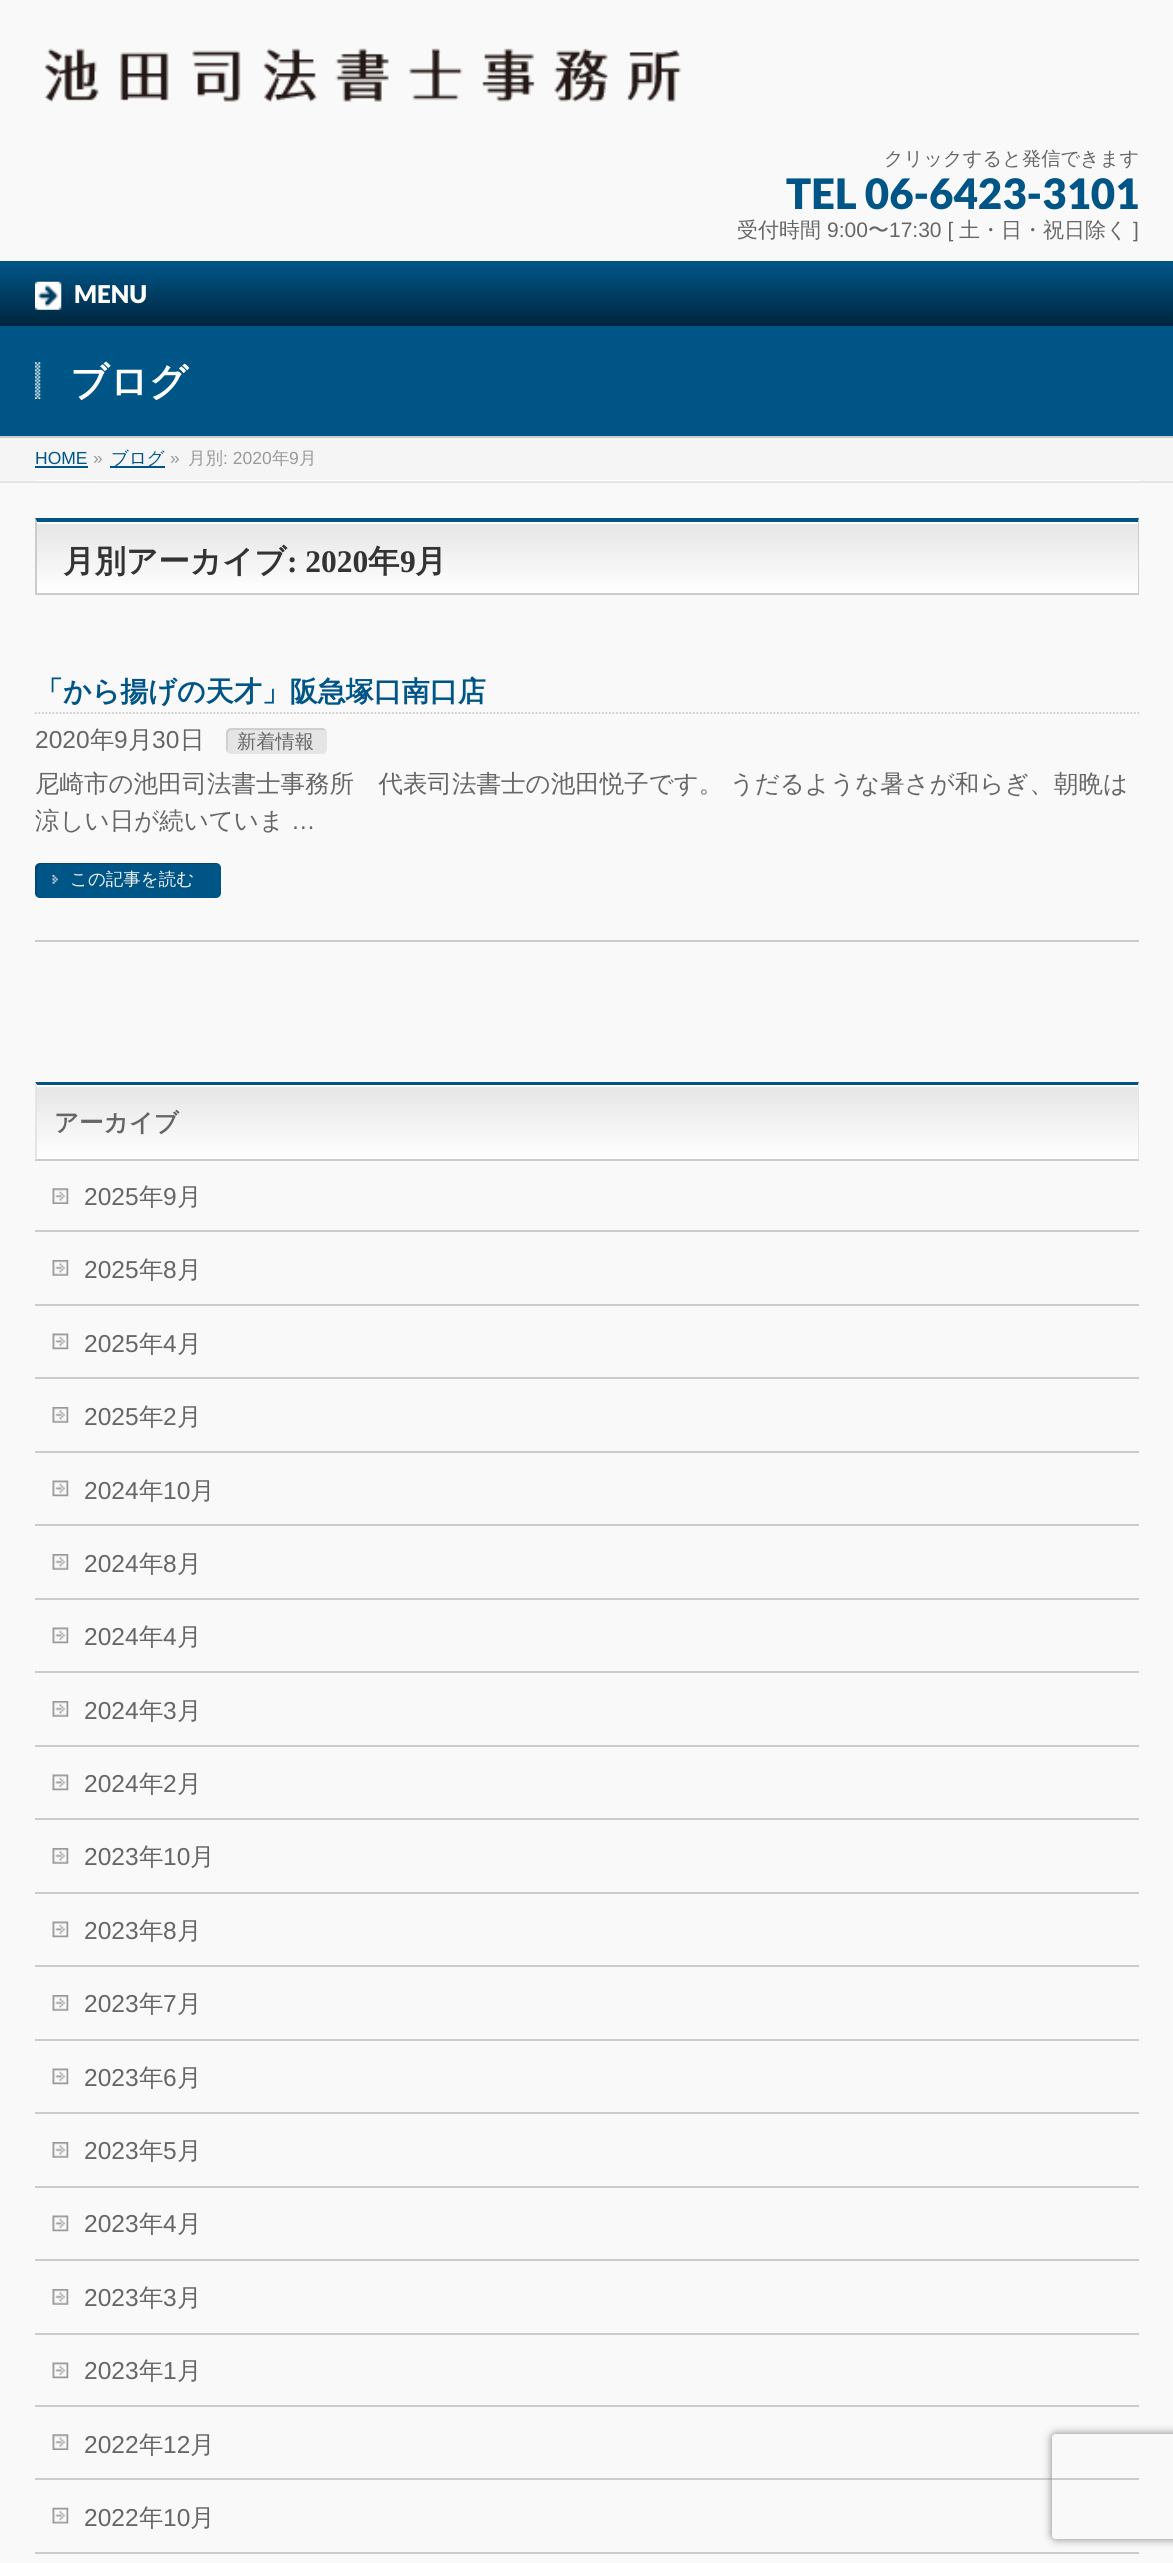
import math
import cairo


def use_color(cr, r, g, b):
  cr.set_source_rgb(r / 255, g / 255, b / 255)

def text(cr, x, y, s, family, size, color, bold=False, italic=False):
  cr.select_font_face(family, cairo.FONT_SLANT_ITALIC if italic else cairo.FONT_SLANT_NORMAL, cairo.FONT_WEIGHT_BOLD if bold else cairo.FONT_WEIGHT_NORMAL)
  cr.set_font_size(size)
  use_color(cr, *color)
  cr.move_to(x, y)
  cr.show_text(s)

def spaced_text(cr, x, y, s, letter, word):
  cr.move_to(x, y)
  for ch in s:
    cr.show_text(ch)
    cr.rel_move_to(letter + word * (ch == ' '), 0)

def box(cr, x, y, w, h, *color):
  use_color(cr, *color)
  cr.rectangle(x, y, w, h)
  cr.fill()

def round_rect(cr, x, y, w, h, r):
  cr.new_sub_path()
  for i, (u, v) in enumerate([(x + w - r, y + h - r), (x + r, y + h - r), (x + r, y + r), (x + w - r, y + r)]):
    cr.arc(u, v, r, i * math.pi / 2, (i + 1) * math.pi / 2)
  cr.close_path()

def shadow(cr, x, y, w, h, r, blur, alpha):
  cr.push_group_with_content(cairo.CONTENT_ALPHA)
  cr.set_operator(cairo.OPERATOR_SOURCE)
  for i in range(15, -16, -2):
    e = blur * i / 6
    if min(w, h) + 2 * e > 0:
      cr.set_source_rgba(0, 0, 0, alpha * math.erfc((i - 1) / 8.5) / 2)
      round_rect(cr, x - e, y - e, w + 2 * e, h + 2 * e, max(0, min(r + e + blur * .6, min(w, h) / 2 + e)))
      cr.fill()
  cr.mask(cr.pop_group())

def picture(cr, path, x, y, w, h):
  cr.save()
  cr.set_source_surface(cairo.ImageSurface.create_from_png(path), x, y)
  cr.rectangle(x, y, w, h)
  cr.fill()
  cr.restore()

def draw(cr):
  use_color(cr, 249, 249, 249)
  cr.paint()
  picture(cr, "img_01.png", 45, 48, 637, 54)
  box(cr, 0, 261, 1173, 3, 0, 85, 135)
  gradient = cairo.LinearGradient(586, 264, 586, 326)
  gradient.add_color_stop_rgba(0, 0, 0.333, 0.529, 1)
  gradient.add_color_stop_rgba(1, 0, 0.145, 0.239, 1)
  cr.set_source(gradient)
  cr.rectangle(0, 264, 1173, 62)
  cr.fill()
  picture(cr, "img_02.png", 35, 281, 27, 29)
  box(cr, 0, 326, 1173, 110, 0, 85, 135)
  box(cr, 0, 436, 1173, 2, 204, 204, 204)
  picture(cr, "img_03.png", 35, 362, 6, 37)
  box(cr, 0, 438, 1173, 43, 245, 245, 245)
  box(cr, 0, 481, 1173, 2, 229, 229, 229)
  box(cr, 35, 480, 1104, 1, 255, 255, 255)
  box(cr, 35, 466, 53, 2, 0, 85, 135)
  box(cr, 110, 466, 55, 2, 0, 85, 135)
  gradient = cairo.LinearGradient(37, 522, 37, 593)
  gradient.add_color_stop_rgba(0, 0.898, 0.898, 0.898, 1)
  gradient.add_color_stop_rgba(1, 1, 1, 1, 1)
  cr.set_source(gradient)
  cr.rectangle(37, 524, 1101, 69)
  cr.fill()
  box(cr, 37, 522, 1101, 2, 255, 255, 255)
  use_color(cr, 0, 85, 135)
  cr.new_path()
  cr.move_to(35, 518)
  cr.line_to(1139, 518)
  cr.line_to(1138, 522)
  cr.line_to(37, 522)
  cr.close_path()
  cr.fill()
  use_color(cr, 204, 204, 204)
  cr.new_path()
  cr.move_to(1139, 518)
  cr.line_to(1139, 595)
  cr.line_to(1138, 593)
  cr.line_to(1138, 522)
  cr.close_path()
  cr.fill()
  box(cr, 35, 593, 1104, 2, 204, 204, 204)
  cr.new_path()
  cr.move_to(35, 595)
  cr.line_to(35, 518)
  cr.line_to(37, 522)
  cr.line_to(37, 593)
  cr.close_path()
  cr.fill()
  box(cr, 35, 940, 1104, 2, 204, 204, 204)
  cr.new_path()
  cr.move_to(35, 713)
  cr.line_to(1139, 713)
  cr.set_line_width(1.8)
  cr.set_dash([1.75, 1.75])
  cr.stroke()
  use_color(cr, 229, 229, 229)
  round_rect(cr, 226, 728, 101, 26, 5)
  cr.fill()
  cr.set_source_rgba(0, 0, 0, 0.1)
  cr.new_path()
  cr.move_to(233, 730)
  cr.line_to(324, 730)
  cr.line_to(326, 730)
  cr.curve_to(325, 729, 324, 728, 322, 728)
  cr.line_to(231, 728)
  cr.curve_to(228, 728, 226, 730, 226, 733)
  cr.line_to(226, 749)
  cr.curve_to(226, 751, 227, 752, 228, 753)
  cr.curve_to(227, 750, 228, 746, 228, 743)
  cr.curve_to(228, 739, 226, 730, 233, 730)
  cr.close_path()
  cr.fill()
  use_color(cr, 0, 85, 135)
  round_rect(cr, 35, 863, 186, 35, 5)
  cr.fill()
  picture(cr, "img_04.png", 52, 875, 6, 9)
  cr.set_source_rgba(0, 0, 0, 0.15)
  cr.new_path()
  cr.move_to(42, 864)
  cr.line_to(218, 864)
  cr.line_to(220, 866)
  cr.curve_to(220, 864, 218, 863, 216, 863)
  cr.line_to(40, 863)
  cr.curve_to(37, 863, 35, 865, 35, 868)
  cr.line_to(35, 893)
  cr.curve_to(35, 895, 36, 897, 38, 898)
  cr.curve_to(36, 894, 37, 886, 37, 882)
  cr.curve_to(37, 878, 35, 864, 42, 864)
  cr.close_path()
  cr.fill()
  gradient = cairo.LinearGradient(37, 1085, 37, 1159)
  gradient.add_color_stop_rgba(0, 0.898, 0.898, 0.898, 1)
  gradient.add_color_stop_rgba(1, 1, 1, 1, 1)
  cr.set_source(gradient)
  cr.rectangle(37, 1087, 1101, 72)
  cr.fill()
  box(cr, 37, 1085, 1101, 2, 255, 255, 255)
  use_color(cr, 0, 85, 135)
  cr.new_path()
  cr.move_to(35, 1082)
  cr.line_to(1139, 1082)
  cr.line_to(1138, 1085)
  cr.line_to(37, 1085)
  cr.close_path()
  cr.fill()
  use_color(cr, 229, 229, 229)
  cr.new_path()
  cr.move_to(1139, 1082)
  cr.line_to(1139, 1160)
  cr.line_to(1138, 1158)
  cr.line_to(1138, 1085)
  cr.close_path()
  cr.fill()
  box(cr, 35, 1159, 1104, 2, 204, 204, 204)
  use_color(cr, 229, 229, 229)
  cr.new_path()
  cr.move_to(35, 1160)
  cr.line_to(35, 1082)
  cr.line_to(37, 1085)
  cr.line_to(37, 1158)
  cr.close_path()
  cr.fill()
  box(cr, 35, 1230, 1104, 2, 204, 204, 204)
  picture(cr, "img_05.png", 52, 1188, 17, 16)
  box(cr, 35, 1304, 1104, 2, 204, 204, 204)
  picture(cr, "img_06.png", 52, 1260, 17, 16)
  box(cr, 35, 1377, 1104, 2, 204, 204, 204)
  picture(cr, "img_07.png", 52, 1333, 17, 17)
  box(cr, 35, 1451, 1104, 2, 204, 204, 204)
  picture(cr, "img_06.png", 52, 1407, 17, 16)
  box(cr, 35, 1524, 1104, 2, 204, 204, 204)
  picture(cr, "img_07.png", 52, 1480, 17, 17)
  box(cr, 35, 1598, 1104, 2, 204, 204, 204)
  picture(cr, "img_06.png", 52, 1554, 17, 16)
  box(cr, 35, 1671, 1104, 2, 204, 204, 204)
  picture(cr, "img_07.png", 52, 1627, 17, 17)
  box(cr, 35, 1745, 1104, 2, 204, 204, 204)
  picture(cr, "img_06.png", 52, 1701, 17, 16)
  box(cr, 35, 1818, 1104, 2, 204, 204, 204)
  picture(cr, "img_07.png", 52, 1774, 17, 17)
  box(cr, 35, 1892, 1104, 2, 204, 204, 204)
  picture(cr, "img_06.png", 52, 1848, 17, 16)
  box(cr, 35, 1965, 1104, 2, 204, 204, 204)
  picture(cr, "img_07.png", 52, 1921, 17, 17)
  box(cr, 35, 2039, 1104, 2, 204, 204, 204)
  picture(cr, "img_08.png", 52, 1995, 17, 16)
  box(cr, 35, 2112, 1104, 2, 204, 204, 204)
  picture(cr, "img_07.png", 52, 2068, 17, 17)
  box(cr, 35, 2186, 1104, 2, 204, 204, 204)
  picture(cr, "img_06.png", 52, 2142, 17, 16)
  box(cr, 35, 2259, 1104, 2, 204, 204, 204)
  picture(cr, "img_07.png", 52, 2215, 17, 17)
  box(cr, 35, 2333, 1104, 2, 204, 204, 204)
  picture(cr, "img_06.png", 52, 2289, 17, 16)
  box(cr, 35, 2405, 1104, 2, 204, 204, 204)
  picture(cr, "img_07.png", 52, 2362, 17, 17)
  box(cr, 35, 2478, 1104, 2, 204, 204, 204)
  picture(cr, "img_05.png", 52, 2434, 17, 16)
  box(cr, 35, 2552, 1104, 2, 204, 204, 204)
  picture(cr, "img_09.png", 52, 2507, 17, 17)
  cr.save()
  cr.set_fill_rule(cairo.FILL_RULE_EVEN_ODD)
  cr.new_path()
  cr.move_to(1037, 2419)
  cr.line_to(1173, 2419)
  cr.line_to(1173, 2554)
  cr.line_to(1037, 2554)
  cr.close_path()
  cr.move_to(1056, 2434)
  cr.line_to(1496, 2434)
  cr.curve_to(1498, 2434, 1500, 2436, 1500, 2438)
  cr.line_to(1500, 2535)
  cr.curve_to(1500, 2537, 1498, 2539, 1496, 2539)
  cr.line_to(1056, 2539)
  cr.curve_to(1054, 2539, 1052, 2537, 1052, 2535)
  cr.line_to(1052, 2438)
  cr.curve_to(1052, 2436, 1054, 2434, 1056, 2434)
  cr.close_path()
  cr.clip()
  use_color(cr, 128, 128, 128)
  shadow(cr, 1052, 2434, 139, 105, 4, 4.5, 1)
  cr.restore()
  text(cr, 884, 165, "クリックすると発信できます", "WenQuanYi Zen Hei Medium", 19.25, (102, 102, 102))
  text(cr, 786, 209, "TEL 06-6423-3101", "Lato Black", 42, (0, 85, 135))
  text(cr, 737, 237, "受付時間", "WenQuanYi Zen Hei Medium", 21, (102, 102, 102))
  text(cr, 827, 237, "9:00", "Liberation Sans", 21, (102, 102, 102))
  text(cr, 868, 237, "〜", "WenQuanYi Zen Hei Medium", 21, (102, 102, 102))
  text(cr, 889, 237, "17:30 [", "Liberation Sans", 21, (102, 102, 102))
  text(cr, 959, 237, "土・日・祝日除く", "WenQuanYi Zen Hei Medium", 21, (102, 102, 102))
  text(cr, 1133, 237, "]", "Liberation Sans", 21, (102, 102, 102))
  text(cr, 74, 303, "MENU", "Lato Black", 24.5, (255, 255, 255))
  text(cr, 70, 395, "ブログ", "WenQuanYi Zen Hei", 38.5, (255, 255, 255), bold=True)
  text(cr, 35, 464, "HOME", "Liberation Sans", 17.5, (0, 85, 135))
  text(cr, 93, 464, "»", "Liberation Sans", 17.5, (153, 153, 153))
  text(cr, 111, 464, "ブログ", "WenQuanYi Zen Hei Medium", 17.5, (0, 85, 135))
  text(cr, 170, 464, "»", "Liberation Sans", 17.5, (153, 153, 153))
  text(cr, 188, 464, "月別", "WenQuanYi Zen Hei Medium", 17.5, (153, 153, 153))
  text(cr, 223, 464, ": 2020", "Liberation Sans", 17.5, (153, 153, 153))
  text(cr, 272, 464, "年", "WenQuanYi Zen Hei Medium", 17.5, (153, 153, 153))
  text(cr, 289, 464, "9", "Liberation Sans", 17.5, (153, 153, 153))
  text(cr, 299, 464, "月", "WenQuanYi Zen Hei Medium", 17.5, (153, 153, 153))
  text(cr, 63, 572, "月別アーカイブ", "WenQuanYi Zen Hei", 31.5, (51, 51, 51), bold=True)
  text(cr, 287, 572, ": 2020", "Liberation Serif", 31.5, (51, 51, 51), bold=True)
  text(cr, 368, 572, "年", "WenQuanYi Zen Hei", 31.5, (51, 51, 51), bold=True)
  text(cr, 400, 572, "9", "Liberation Serif", 31.5, (51, 51, 51), bold=True)
  text(cr, 415, 572, "月", "WenQuanYi Zen Hei", 31.5, (51, 51, 51), bold=True)
  text(cr, 35, 701, "「から揚げの天才」阪急塚口南口店", "WenQuanYi Zen Hei", 28, (0, 85, 135), bold=True)
  text(cr, 35, 748, "2020", "Liberation Sans", 24.5, (102, 102, 102))
  text(cr, 90, 748, "年", "WenQuanYi Zen Hei Medium", 24.5, (102, 102, 102))
  text(cr, 114, 748, "9", "Liberation Sans", 24.5, (102, 102, 102))
  text(cr, 128, 748, "月", "WenQuanYi Zen Hei Medium", 24.5, (102, 102, 102))
  text(cr, 152, 748, "30", "Liberation Sans", 24.5, (102, 102, 102))
  text(cr, 180, 748, "日", "WenQuanYi Zen Hei Medium", 24.5, (102, 102, 102))
  text(cr, 237, 748, "新着情報", "WenQuanYi Zen Hei Medium", 19.25, (102, 102, 102))
  cr.set_font_size(24.5)
  spaced_text(cr, 35, 792, "尼崎市の池田司法書士事務所　代表司法書士の池田悦子です。 うだるような暑さが和らぎ、朝晩は", 0, -1)
  text(cr, 35, 829, "涼しい日が続いていま", "WenQuanYi Zen Hei Medium", 24.5, (102, 102, 102))
  text(cr, 291, 829, "…", "Liberation Sans", 24.5, (102, 102, 102))
  text(cr, 70, 885, "この記事を読む", "WenQuanYi Zen Hei Medium", 17.5, (245, 245, 245))
  text(cr, 54, 1131, "アーカイブ", "WenQuanYi Zen Hei", 24.5, (102, 102, 102), bold=True)
  text(cr, 84, 1205, "2025", "Liberation Sans", 24.5, (102, 102, 102))
  text(cr, 139, 1205, "年", "WenQuanYi Zen Hei Medium", 24.5, (102, 102, 102))
  text(cr, 163, 1205, "9", "Liberation Sans", 24.5, (102, 102, 102))
  text(cr, 177, 1205, "月", "WenQuanYi Zen Hei Medium", 24.5, (102, 102, 102))
  text(cr, 84, 1278, "2025", "Liberation Sans", 24.5, (102, 102, 102))
  text(cr, 139, 1278, "年", "WenQuanYi Zen Hei Medium", 24.5, (102, 102, 102))
  text(cr, 163, 1278, "8", "Liberation Sans", 24.5, (102, 102, 102))
  text(cr, 177, 1278, "月", "WenQuanYi Zen Hei Medium", 24.5, (102, 102, 102))
  text(cr, 84, 1352, "2025", "Liberation Sans", 24.5, (102, 102, 102))
  text(cr, 139, 1352, "年", "WenQuanYi Zen Hei Medium", 24.5, (102, 102, 102))
  text(cr, 163, 1352, "4", "Liberation Sans", 24.5, (102, 102, 102))
  text(cr, 177, 1352, "月", "WenQuanYi Zen Hei Medium", 24.5, (102, 102, 102))
  text(cr, 84, 1425, "2025", "Liberation Sans", 24.5, (102, 102, 102))
  text(cr, 139, 1425, "年", "WenQuanYi Zen Hei Medium", 24.5, (102, 102, 102))
  text(cr, 163, 1425, "2", "Liberation Sans", 24.5, (102, 102, 102))
  text(cr, 177, 1425, "月", "WenQuanYi Zen Hei Medium", 24.5, (102, 102, 102))
  text(cr, 84, 1499, "2024", "Liberation Sans", 24.5, (102, 102, 102))
  text(cr, 139, 1499, "年", "WenQuanYi Zen Hei Medium", 24.5, (102, 102, 102))
  text(cr, 163, 1499, "10", "Liberation Sans", 24.5, (102, 102, 102))
  text(cr, 190, 1499, "月", "WenQuanYi Zen Hei Medium", 24.5, (102, 102, 102))
  text(cr, 84, 1572, "2024", "Liberation Sans", 24.5, (102, 102, 102))
  text(cr, 139, 1572, "年", "WenQuanYi Zen Hei Medium", 24.5, (102, 102, 102))
  text(cr, 163, 1572, "8", "Liberation Sans", 24.5, (102, 102, 102))
  text(cr, 177, 1572, "月", "WenQuanYi Zen Hei Medium", 24.5, (102, 102, 102))
  text(cr, 84, 1645, "2024", "Liberation Sans", 24.5, (102, 102, 102))
  text(cr, 139, 1645, "年", "WenQuanYi Zen Hei Medium", 24.5, (102, 102, 102))
  text(cr, 163, 1645, "4", "Liberation Sans", 24.5, (102, 102, 102))
  text(cr, 177, 1645, "月", "WenQuanYi Zen Hei Medium", 24.5, (102, 102, 102))
  text(cr, 84, 1719, "2024", "Liberation Sans", 24.5, (102, 102, 102))
  text(cr, 139, 1719, "年", "WenQuanYi Zen Hei Medium", 24.5, (102, 102, 102))
  text(cr, 163, 1719, "3", "Liberation Sans", 24.5, (102, 102, 102))
  text(cr, 177, 1719, "月", "WenQuanYi Zen Hei Medium", 24.5, (102, 102, 102))
  text(cr, 84, 1792, "2024", "Liberation Sans", 24.5, (102, 102, 102))
  text(cr, 139, 1792, "年", "WenQuanYi Zen Hei Medium", 24.5, (102, 102, 102))
  text(cr, 163, 1792, "2", "Liberation Sans", 24.5, (102, 102, 102))
  text(cr, 177, 1792, "月", "WenQuanYi Zen Hei Medium", 24.5, (102, 102, 102))
  text(cr, 84, 1865, "2023", "Liberation Sans", 24.5, (102, 102, 102))
  text(cr, 139, 1865, "年", "WenQuanYi Zen Hei Medium", 24.5, (102, 102, 102))
  text(cr, 163, 1865, "10", "Liberation Sans", 24.5, (102, 102, 102))
  text(cr, 190, 1865, "月", "WenQuanYi Zen Hei Medium", 24.5, (102, 102, 102))
  text(cr, 84, 1939, "2023", "Liberation Sans", 24.5, (102, 102, 102))
  text(cr, 139, 1939, "年", "WenQuanYi Zen Hei Medium", 24.5, (102, 102, 102))
  text(cr, 163, 1939, "8", "Liberation Sans", 24.5, (102, 102, 102))
  text(cr, 177, 1939, "月", "WenQuanYi Zen Hei Medium", 24.5, (102, 102, 102))
  text(cr, 84, 2012, "2023", "Liberation Sans", 24.5, (102, 102, 102))
  text(cr, 139, 2012, "年", "WenQuanYi Zen Hei Medium", 24.5, (102, 102, 102))
  text(cr, 163, 2012, "7", "Liberation Sans", 24.5, (102, 102, 102))
  text(cr, 177, 2012, "月", "WenQuanYi Zen Hei Medium", 24.5, (102, 102, 102))
  text(cr, 84, 2086, "2023", "Liberation Sans", 24.5, (102, 102, 102))
  text(cr, 139, 2086, "年", "WenQuanYi Zen Hei Medium", 24.5, (102, 102, 102))
  text(cr, 163, 2086, "6", "Liberation Sans", 24.5, (102, 102, 102))
  text(cr, 177, 2086, "月", "WenQuanYi Zen Hei Medium", 24.5, (102, 102, 102))
  text(cr, 84, 2159, "2023", "Liberation Sans", 24.5, (102, 102, 102))
  text(cr, 139, 2159, "年", "WenQuanYi Zen Hei Medium", 24.5, (102, 102, 102))
  text(cr, 163, 2159, "5", "Liberation Sans", 24.5, (102, 102, 102))
  text(cr, 177, 2159, "月", "WenQuanYi Zen Hei Medium", 24.5, (102, 102, 102))
  text(cr, 84, 2232, "2023", "Liberation Sans", 24.5, (102, 102, 102))
  text(cr, 139, 2232, "年", "WenQuanYi Zen Hei Medium", 24.5, (102, 102, 102))
  text(cr, 163, 2232, "4", "Liberation Sans", 24.5, (102, 102, 102))
  text(cr, 177, 2232, "月", "WenQuanYi Zen Hei Medium", 24.5, (102, 102, 102))
  text(cr, 84, 2306, "2023", "Liberation Sans", 24.5, (102, 102, 102))
  text(cr, 139, 2306, "年", "WenQuanYi Zen Hei Medium", 24.5, (102, 102, 102))
  text(cr, 163, 2306, "3", "Liberation Sans", 24.5, (102, 102, 102))
  text(cr, 177, 2306, "月", "WenQuanYi Zen Hei Medium", 24.5, (102, 102, 102))
  text(cr, 84, 2379, "2023", "Liberation Sans", 24.5, (102, 102, 102))
  text(cr, 139, 2379, "年", "WenQuanYi Zen Hei Medium", 24.5, (102, 102, 102))
  text(cr, 163, 2379, "1", "Liberation Sans", 24.5, (102, 102, 102))
  text(cr, 177, 2379, "月", "WenQuanYi Zen Hei Medium", 24.5, (102, 102, 102))
  text(cr, 84, 2453, "2022", "Liberation Sans", 24.5, (102, 102, 102))
  text(cr, 139, 2453, "年", "WenQuanYi Zen Hei Medium", 24.5, (102, 102, 102))
  text(cr, 163, 2453, "12", "Liberation Sans", 24.5, (102, 102, 102))
  text(cr, 190, 2453, "月", "WenQuanYi Zen Hei Medium", 24.5, (102, 102, 102))
  text(cr, 84, 2526, "2022", "Liberation Sans", 24.5, (102, 102, 102))
  text(cr, 139, 2526, "年", "WenQuanYi Zen Hei Medium", 24.5, (102, 102, 102))
  text(cr, 163, 2526, "10", "Liberation Sans", 24.5, (102, 102, 102))
  text(cr, 190, 2526, "月", "WenQuanYi Zen Hei Medium", 24.5, (102, 102, 102))


surface = cairo.ImageSurface(cairo.FORMAT_RGB24, 1173, 2563)
cr = cairo.Context(surface)
options = cairo.FontOptions()
options.set_hint_metrics(cairo.HINT_METRICS_OFF)
options.set_hint_style(cairo.HINT_STYLE_NONE)
cr.set_font_options(options)
cr.set_miter_limit(4)
draw(cr)
surface.write_to_png("out.png")
